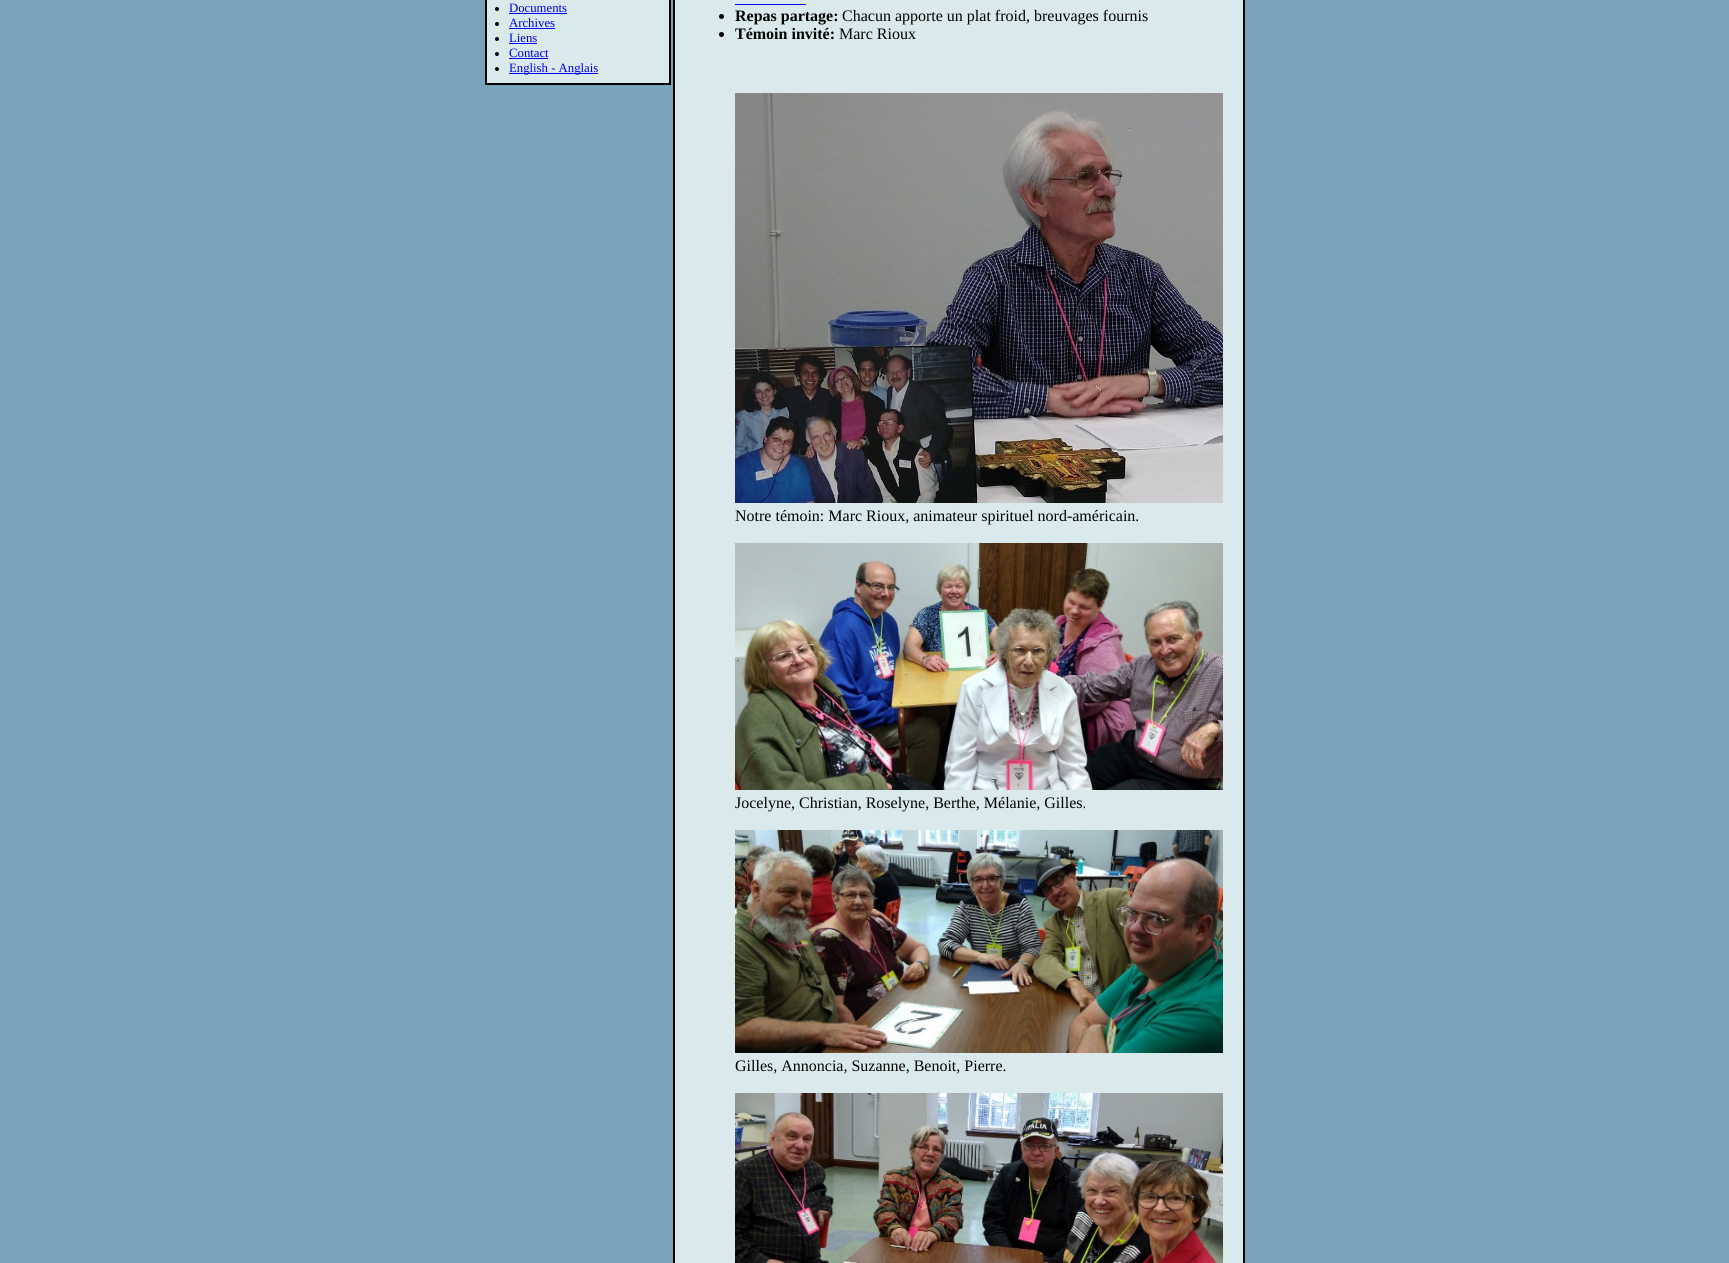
import math
import cairo


def use_color(cr, r, g, b):
  cr.set_source_rgb(r / 255, g / 255, b / 255)

def text(cr, x, y, s, family, size, color, bold=False, italic=False):
  cr.select_font_face(family, cairo.FONT_SLANT_ITALIC if italic else cairo.FONT_SLANT_NORMAL, cairo.FONT_WEIGHT_BOLD if bold else cairo.FONT_WEIGHT_NORMAL)
  cr.set_font_size(size)
  use_color(cr, *color)
  cr.move_to(x, y)
  cr.show_text(s)

def box(cr, x, y, w, h, *color):
  use_color(cr, *color)
  cr.rectangle(x, y, w, h)
  cr.fill()

def picture(cr, path, x, y, w, h):
  cr.save()
  cr.set_source_surface(cairo.ImageSurface.create_from_png(path), x, y)
  cr.rectangle(x, y, w, h)
  cr.fill()
  cr.restore()

def draw(cr):
  use_color(cr, 120, 165, 188)
  cr.paint()
  use_color(cr, 217, 233, 236)
  cr.rectangle(486, -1, 184, 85)
  cr.fill_preserve()
  use_color(cr, 0, 0, 0)
  cr.stroke()
  cr.arc(497, 9, 2, 0, 2 * math.pi)
  cr.fill()
  box(cr, 509, 13, 58, 1, 0, 0, 238)
  use_color(cr, 0, 0, 0)
  cr.arc(497, 24, 2, 0, 2 * math.pi)
  cr.fill()
  box(cr, 509, 28, 46, 1, 0, 0, 238)
  use_color(cr, 0, 0, 0)
  cr.arc(497, 39, 2, 0, 2 * math.pi)
  cr.fill()
  box(cr, 509, 43, 28, 1, 0, 0, 238)
  use_color(cr, 0, 0, 0)
  cr.arc(497, 54, 2, 0, 2 * math.pi)
  cr.fill()
  box(cr, 509, 58, 39, 1, 0, 0, 238)
  use_color(cr, 0, 0, 0)
  cr.arc(497, 69, 2, 0, 2 * math.pi)
  cr.fill()
  box(cr, 509, 73, 89, 1, 0, 0, 238)
  use_color(cr, 217, 233, 236)
  cr.rectangle(674, -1, 570, 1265)
  cr.fill_preserve()
  use_color(cr, 0, 0, 0)
  cr.stroke()
  box(cr, 735, 4, 71, 1, 0, 0, 238)
  use_color(cr, 0, 0, 0)
  cr.arc(721.5, 16.5, 2.5, 0, 2 * math.pi)
  cr.fill()
  cr.arc(721.5, 34.5, 2.5, 0, 2 * math.pi)
  cr.fill()
  picture(cr, "img_01.png", 735, 93, 488, 410)
  picture(cr, "img_02.png", 735, 543, 488, 247)
  picture(cr, "img_03.png", 735, 830, 488, 223)
  picture(cr, "img_04.png", 735, 1093, 488, 170)
  text(cr, 509, 12, "Documents", "Liberation Serif", 12.75, (0, 0, 238))
  text(cr, 509, 27, "Archives", "Liberation Serif", 12.75, (0, 0, 238))
  text(cr, 509, 42, "Liens", "Liberation Serif", 12.75, (0, 0, 238))
  text(cr, 509, 57, "Contact", "Liberation Serif", 12.75, (0, 0, 238))
  text(cr, 509, 72, "English - Anglais", "Liberation Serif", 12.75, (0, 0, 238))
  text(cr, 735, 21, "Repas partage:", "Liberation Serif", 16, (0, 0, 0), bold=True)
  text(cr, 842, 21, "Chacun apporte un plat froid, breuvages fournis", "Liberation Serif", 16, (0, 0, 0))
  text(cr, 735, 39, "Témoin invité:", "Liberation Serif", 16, (0, 0, 0), bold=True)
  text(cr, 839, 39, "Marc Rioux", "Liberation Serif", 16, (0, 0, 0))
  text(cr, 735, 521, "Notre témoin: Marc Rioux, animateur spirituel nord-américain.", "Liberation Serif", 16, (0, 0, 0))
  text(cr, 735, 808, "Jocelyne, Christian, Roselyne, Berthe, Mélanie, Gilles.", "Liberation Serif", 16, (0, 0, 0))
  text(cr, 735, 1071, "Gilles, Annoncia, Suzanne, Benoit, Pierre.", "Liberation Serif", 16, (0, 0, 0))


surface = cairo.ImageSurface(cairo.FORMAT_RGB24, 1729, 1263)
cr = cairo.Context(surface)
options = cairo.FontOptions()
options.set_hint_metrics(cairo.HINT_METRICS_OFF)
options.set_hint_style(cairo.HINT_STYLE_NONE)
cr.set_font_options(options)
cr.set_miter_limit(4)
draw(cr)
surface.write_to_png("out.png")
